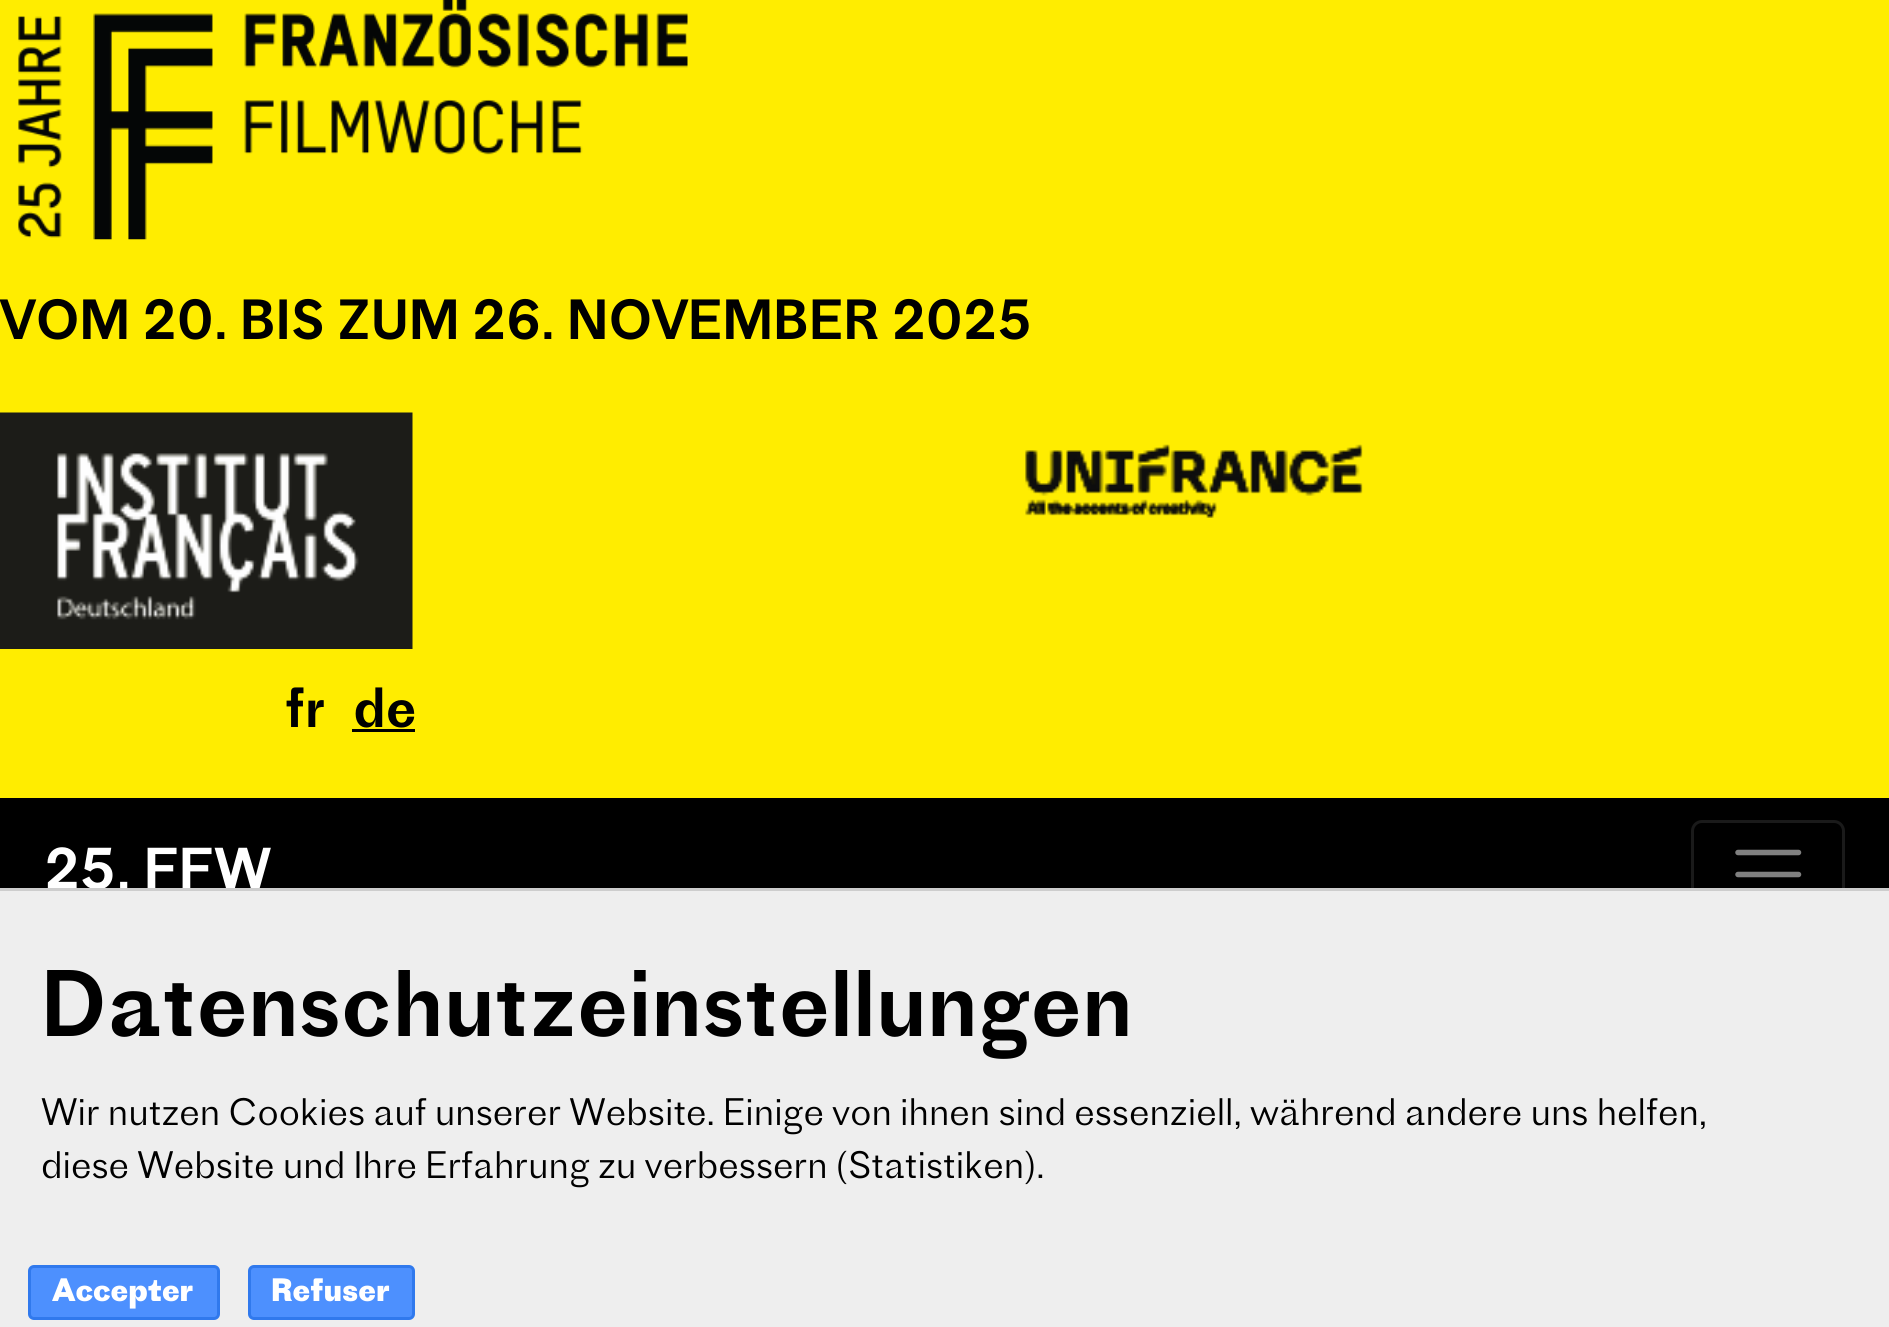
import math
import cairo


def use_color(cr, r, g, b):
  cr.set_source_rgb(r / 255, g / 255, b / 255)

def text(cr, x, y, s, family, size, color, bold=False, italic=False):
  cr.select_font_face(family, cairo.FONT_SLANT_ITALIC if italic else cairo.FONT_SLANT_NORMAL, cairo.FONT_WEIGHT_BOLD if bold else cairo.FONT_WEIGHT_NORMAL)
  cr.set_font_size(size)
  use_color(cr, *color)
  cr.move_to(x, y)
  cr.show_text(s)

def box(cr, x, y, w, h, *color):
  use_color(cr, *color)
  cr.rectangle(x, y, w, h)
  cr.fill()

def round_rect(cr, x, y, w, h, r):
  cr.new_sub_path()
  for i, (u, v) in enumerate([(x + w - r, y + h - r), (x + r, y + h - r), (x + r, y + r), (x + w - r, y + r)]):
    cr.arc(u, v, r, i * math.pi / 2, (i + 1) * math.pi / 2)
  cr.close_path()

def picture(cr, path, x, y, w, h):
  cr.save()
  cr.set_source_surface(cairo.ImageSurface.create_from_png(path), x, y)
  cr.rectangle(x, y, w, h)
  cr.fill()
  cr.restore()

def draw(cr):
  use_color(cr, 255, 237, 0)
  cr.paint()
  picture(cr, "img_01.png", 18, 0, 670, 240)
  picture(cr, "img_02.png", 0, 412, 413, 237)
  picture(cr, "img_03.png", 1025, 444, 338, 74)
  box(cr, 352, 729, 63, 3, 0, 0, 0)
  box(cr, 0, 798, 1889, 90, 0, 0, 0)
  round_rect(cr, 1692.5, 821.5, 151, 107, 9.5)
  use_color(cr, 26, 26, 26)
  cr.set_line_width(3)
  cr.stroke()
  cr.new_path()
  cr.move_to(1738, 852.5)
  cr.line_to(1798.5, 852.5)
  cr.move_to(1738, 874.5)
  cr.line_to(1798.5, 874.5)
  cr.move_to(1738, 896.5)
  cr.line_to(1798.5, 896.5)
  use_color(cr, 128, 128, 128)
  cr.set_line_width(5.5)
  cr.set_line_cap(cairo.LINE_CAP_ROUND)
  cr.stroke()
  box(cr, 0, 891, 1889, 436, 238, 238, 238)
  use_color(cr, 77, 144, 254)
  round_rect(cr, 29.5, 1266.5, 189, 52, 4.5)
  cr.fill_preserve()
  use_color(cr, 48, 121, 237)
  cr.set_line_width(3)
  cr.set_line_cap(cairo.LINE_CAP_BUTT)
  cr.stroke()
  use_color(cr, 77, 144, 254)
  round_rect(cr, 249.5, 1266.5, 164, 52, 4.5)
  cr.fill_preserve()
  use_color(cr, 48, 121, 237)
  cr.stroke()
  text(cr, 0, 339, "VOM 20. BIS ZUM 26. NOVEMBER 2025", "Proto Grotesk", 52.75, (0, 0, 0))
  text(cr, 285, 727, "fr", "Proto Grotesk", 52.75, (0, 0, 0))
  text(cr, 353, 727, "de", "Proto Grotesk", 52.75, (0, 0, 0))
  text(cr, 44, 889, "25. FFW", "Proto Grotesk", 55, (255, 255, 255))
  box(cr, 0, 888, 1889, 3, 205, 205, 205)
  text(cr, 41, 1036, "Datenschutzeinstellungen", "Proto Grotesk", 88, (0, 0, 0))
  text(cr, 41, 1125, "Wir nutzen Cookies auf unserer Website. Einige von ihnen sind essenziell, während andere uns helfen,", "Proto Grotesk Light", 35.75, (0, 0, 0))
  text(cr, 41, 1178, "diese Website und Ihre Erfahrung zu verbessern (Statistiken).", "Proto Grotesk Light", 35.75, (0, 0, 0))
  text(cr, 52, 1301, "Accepter", "Proto Grotesk", 30.25, (255, 255, 255), bold=True)
  text(cr, 271, 1301, "Refuser", "Proto Grotesk", 30.25, (255, 255, 255), bold=True)


surface = cairo.ImageSurface(cairo.FORMAT_RGB24, 1889, 1327)
cr = cairo.Context(surface)
options = cairo.FontOptions()
options.set_hint_metrics(cairo.HINT_METRICS_OFF)
options.set_hint_style(cairo.HINT_STYLE_NONE)
cr.set_font_options(options)
cr.set_miter_limit(4)
draw(cr)
surface.write_to_png("out.png")
